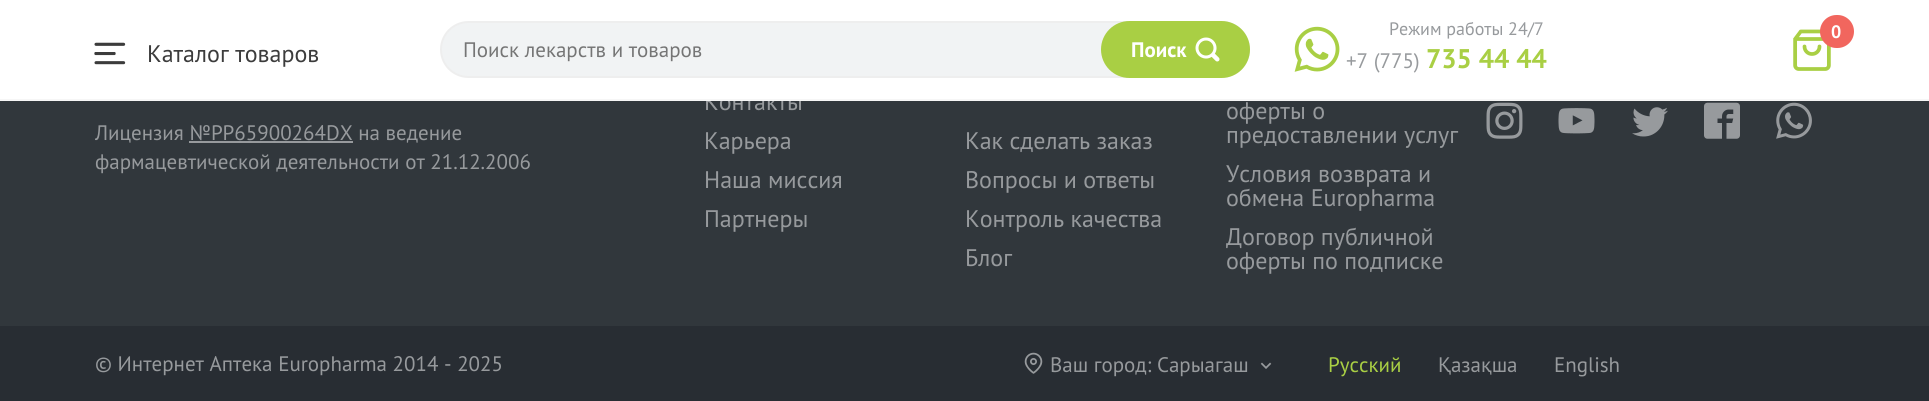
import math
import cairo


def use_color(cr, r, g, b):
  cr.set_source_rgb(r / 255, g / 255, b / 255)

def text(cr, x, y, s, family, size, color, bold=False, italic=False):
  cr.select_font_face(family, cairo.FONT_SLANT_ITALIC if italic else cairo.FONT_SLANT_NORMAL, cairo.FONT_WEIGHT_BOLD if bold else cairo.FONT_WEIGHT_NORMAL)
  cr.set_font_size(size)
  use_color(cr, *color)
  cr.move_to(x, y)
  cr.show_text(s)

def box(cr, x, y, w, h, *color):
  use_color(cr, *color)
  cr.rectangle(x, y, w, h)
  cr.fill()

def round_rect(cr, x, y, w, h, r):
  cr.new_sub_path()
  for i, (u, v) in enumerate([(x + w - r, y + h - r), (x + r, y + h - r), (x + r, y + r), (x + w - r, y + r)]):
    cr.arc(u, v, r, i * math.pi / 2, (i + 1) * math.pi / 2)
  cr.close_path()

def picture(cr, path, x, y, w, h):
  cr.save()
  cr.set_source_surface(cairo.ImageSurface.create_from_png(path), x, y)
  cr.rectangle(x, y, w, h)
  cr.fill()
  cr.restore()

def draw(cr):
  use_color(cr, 49, 55, 60)
  cr.paint()
  picture(cr, "img_05.png", 1486, 102, 37, 37)
  picture(cr, "img_06.png", 1558, 108, 37, 26)
  picture(cr, "img_07.png", 1632, 107, 36, 30)
  picture(cr, "img_08.png", 1704, 102, 36, 37)
  picture(cr, "img_09.png", 1776, 102, 36, 37)
  box(cr, 189, 141, 164, 2, 151, 154, 157)
  box(cr, 0, 326, 1929, 75, 40, 45, 51)
  picture(cr, "img_10.png", 1024, 352, 19, 22)
  picture(cr, "img_11.png", 1260, 362, 12, 7)
  text(cr, 704, 110, "Контакты", "PT Sans", 24, (151, 154, 157))
  box(cr, 0, 0, 1929, 99, 255, 255, 255)
  picture(cr, "img_02.png", 1793, 29, 38, 42)
  use_color(cr, 241, 102, 94)
  round_rect(cr, 1820, 15, 34, 33, 16.5)
  cr.fill()
  text(cr, 1831, 38, "0", "PT Sans", 18, (255, 255, 255), bold=True)
  text(cr, 1389, 35, "Режим работы 24/7", "PT Sans", 18, (151, 154, 157))
  text(cr, 1426, 68, "735 44 44", "PT Sans", 27, (169, 207, 68), bold=True)
  text(cr, 1346, 68, "+7 (775)", "PT Sans", 21, (151, 154, 157))
  picture(cr, "img_01.png", 1294, 26, 46, 46)
  use_color(cr, 241, 243, 244)
  round_rect(cr, 441, 22, 808, 55, 27.5)
  cr.fill_preserve()
  use_color(cr, 238, 238, 238)
  cr.stroke()
  use_color(cr, 169, 207, 68)
  round_rect(cr, 1101, 21, 149, 57, 28.5)
  cr.fill()
  picture(cr, "img_04.png", 1195, 37, 25, 25)
  text(cr, 1131, 57, "Поиск", "PT Sans", 21, (255, 255, 255), bold=True)
  text(cr, 463, 57, "Поиск лекарств и товаров", "PT Sans", 21, (117, 117, 117))
  picture(cr, "img_03.png", 94, 42, 32, 23)
  text(cr, 147, 62, "Каталог товаров", "PT Sans", 24, (60, 60, 60))
  box(cr, 0, 99, 1929, 2, 246, 246, 246)
  text(cr, 704, 149, "Карьера", "PT Sans", 24, (151, 154, 157))
  text(cr, 704, 188, "Наша миссия", "PT Sans", 24, (151, 154, 157))
  text(cr, 704, 227, "Партнеры", "PT Sans", 24, (151, 154, 157))
  text(cr, 1226, 119, "оферты о", "PT Sans", 24, (151, 154, 157))
  text(cr, 1226, 143, "предоставлении услуг", "PT Sans", 24, (151, 154, 157))
  text(cr, 1226, 182, "Условия возврата и", "PT Sans", 24, (151, 154, 157))
  text(cr, 1226, 206, "обмена Europharma", "PT Sans", 24, (151, 154, 157))
  text(cr, 1226, 245, "Договор публичной", "PT Sans", 24, (151, 154, 157))
  text(cr, 1226, 269, "оферты по подписке", "PT Sans", 24, (151, 154, 157))
  text(cr, 95, 140, "Лицензия №PP65900264DX на ведение", "PT Sans", 21, (151, 154, 157))
  text(cr, 95, 169, "фармацевтической деятельности от 21.12.2006", "PT Sans", 21, (151, 154, 157))
  text(cr, 965, 149, "Как сделать заказ", "PT Sans", 24, (151, 154, 157))
  text(cr, 965, 188, "Вопросы и ответы", "PT Sans", 24, (151, 154, 157))
  text(cr, 965, 227, "Контроль качества", "PT Sans", 24, (151, 154, 157))
  text(cr, 965, 266, "Блог", "PT Sans", 24, (151, 154, 157))
  text(cr, 95, 371, "© Интернет Аптека Europharma 2014 - 2025", "PT Sans", 21, (151, 154, 157))
  text(cr, 1050, 372, "Ваш город: Сарыагаш", "PT Sans", 21, (151, 154, 157))
  text(cr, 1328, 372, "Русский", "PT Sans", 21, (169, 207, 68))
  text(cr, 1438, 372, "Қазақша", "PT Sans", 21, (151, 154, 157))
  text(cr, 1554, 372, "English", "PT Sans", 21, (151, 154, 157))


surface = cairo.ImageSurface(cairo.FORMAT_RGB24, 1929, 401)
cr = cairo.Context(surface)
options = cairo.FontOptions()
options.set_hint_metrics(cairo.HINT_METRICS_OFF)
options.set_hint_style(cairo.HINT_STYLE_NONE)
cr.set_font_options(options)
cr.set_miter_limit(4)
draw(cr)
surface.write_to_png("out.png")
